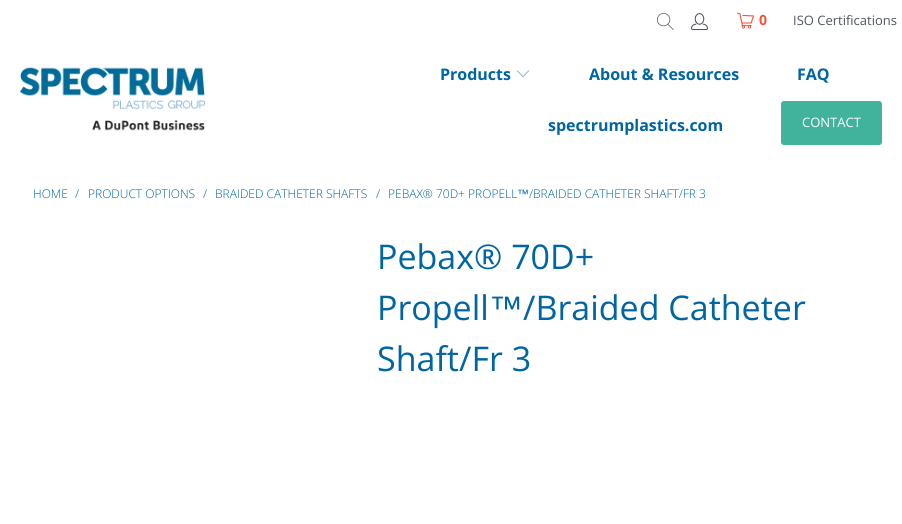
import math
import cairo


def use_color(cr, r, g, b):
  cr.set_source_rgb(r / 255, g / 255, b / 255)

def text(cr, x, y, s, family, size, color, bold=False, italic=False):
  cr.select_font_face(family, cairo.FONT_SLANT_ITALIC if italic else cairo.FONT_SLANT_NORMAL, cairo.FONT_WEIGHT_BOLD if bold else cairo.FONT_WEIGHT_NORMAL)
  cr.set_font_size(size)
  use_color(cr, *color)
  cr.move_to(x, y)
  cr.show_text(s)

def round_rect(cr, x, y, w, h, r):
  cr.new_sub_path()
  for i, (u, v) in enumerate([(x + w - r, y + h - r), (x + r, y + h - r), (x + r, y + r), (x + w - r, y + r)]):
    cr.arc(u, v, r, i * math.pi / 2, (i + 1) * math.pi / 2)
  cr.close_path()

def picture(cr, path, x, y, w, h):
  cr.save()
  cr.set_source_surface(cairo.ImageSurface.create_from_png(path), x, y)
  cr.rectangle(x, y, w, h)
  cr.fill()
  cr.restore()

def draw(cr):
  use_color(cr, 255, 255, 255)
  cr.paint()
  picture(cr, "img_01.png", 657, 13, 17, 17)
  picture(cr, "img_02.png", 691, 13, 17, 18)
  picture(cr, "img_03.png", 737, 12, 17, 17)
  picture(cr, "img_04.png", 20, 67, 185, 64)
  picture(cr, "img_05.png", 517, 70, 12, 7)
  use_color(cr, 65, 178, 156)
  round_rect(cr, 781.5, 101.5, 100, 43, 2.5)
  cr.fill_preserve()
  cr.set_line_width(1)
  cr.stroke()
  text(cr, 759, 25, "0", "Open Sans", 14, (240, 83, 58), bold=True)
  text(cr, 793, 25, "ISO Certifications", "Open Sans", 13, (81, 86, 100))
  text(cr, 440, 80, "Products", "Open Sans", 16, (0, 101, 161), bold=True)
  text(cr, 589, 80, "About & Resources", "Open Sans", 16, (0, 101, 161), bold=True)
  text(cr, 797, 80, "FAQ", "Open Sans", 16, (0, 101, 161), bold=True)
  text(cr, 548, 131, "spectrumplastics.com", "Open Sans", 16, (0, 101, 161), bold=True)
  text(cr, 802, 127, "CONTACT", "Open Sans", 13, (255, 255, 255))
  text(cr, 33, 198, "HOME", "Open Sans Light", 12, (0, 101, 161))
  text(cr, 75, 198, "/", "Open Sans Light", 12, (0, 101, 161))
  text(cr, 88, 198, "PRODUCT OPTIONS", "Open Sans Light", 12, (0, 101, 161))
  text(cr, 203, 198, "/", "Open Sans Light", 12, (0, 101, 161))
  text(cr, 215, 198, "BRAIDED CATHETER SHAFTS", "Open Sans Light", 12, (0, 101, 161))
  text(cr, 376, 198, "/", "Open Sans Light", 12, (0, 101, 161))
  text(cr, 388, 198, "PEBAX® 70D+ PROPELL", "Open Sans Light", 12, (0, 101, 161))
  text(cr, 517, 198, "™", "Liberation Sans", 12, (0, 101, 161))
  text(cr, 529, 198, "/BRAIDED CATHETER SHAFT/FR 3", "Open Sans Light", 12, (0, 101, 161))
  text(cr, 377, 269, "Pebax® 70D+", "Open Sans", 34, (0, 101, 161))
  text(cr, 377, 320, "Propell", "Open Sans", 34, (0, 101, 161))
  text(cr, 489, 320, "™", "Liberation Sans", 34, (0, 101, 161))
  text(cr, 523, 320, "/Braided Catheter", "Open Sans", 34, (0, 101, 161))
  text(cr, 377, 371, "Shaft/Fr 3", "Open Sans", 34, (0, 101, 161))


surface = cairo.ImageSurface(cairo.FORMAT_RGB24, 902, 524)
cr = cairo.Context(surface)
options = cairo.FontOptions()
options.set_hint_metrics(cairo.HINT_METRICS_OFF)
options.set_hint_style(cairo.HINT_STYLE_NONE)
cr.set_font_options(options)
cr.set_miter_limit(4)
draw(cr)
surface.write_to_png("out.png")
